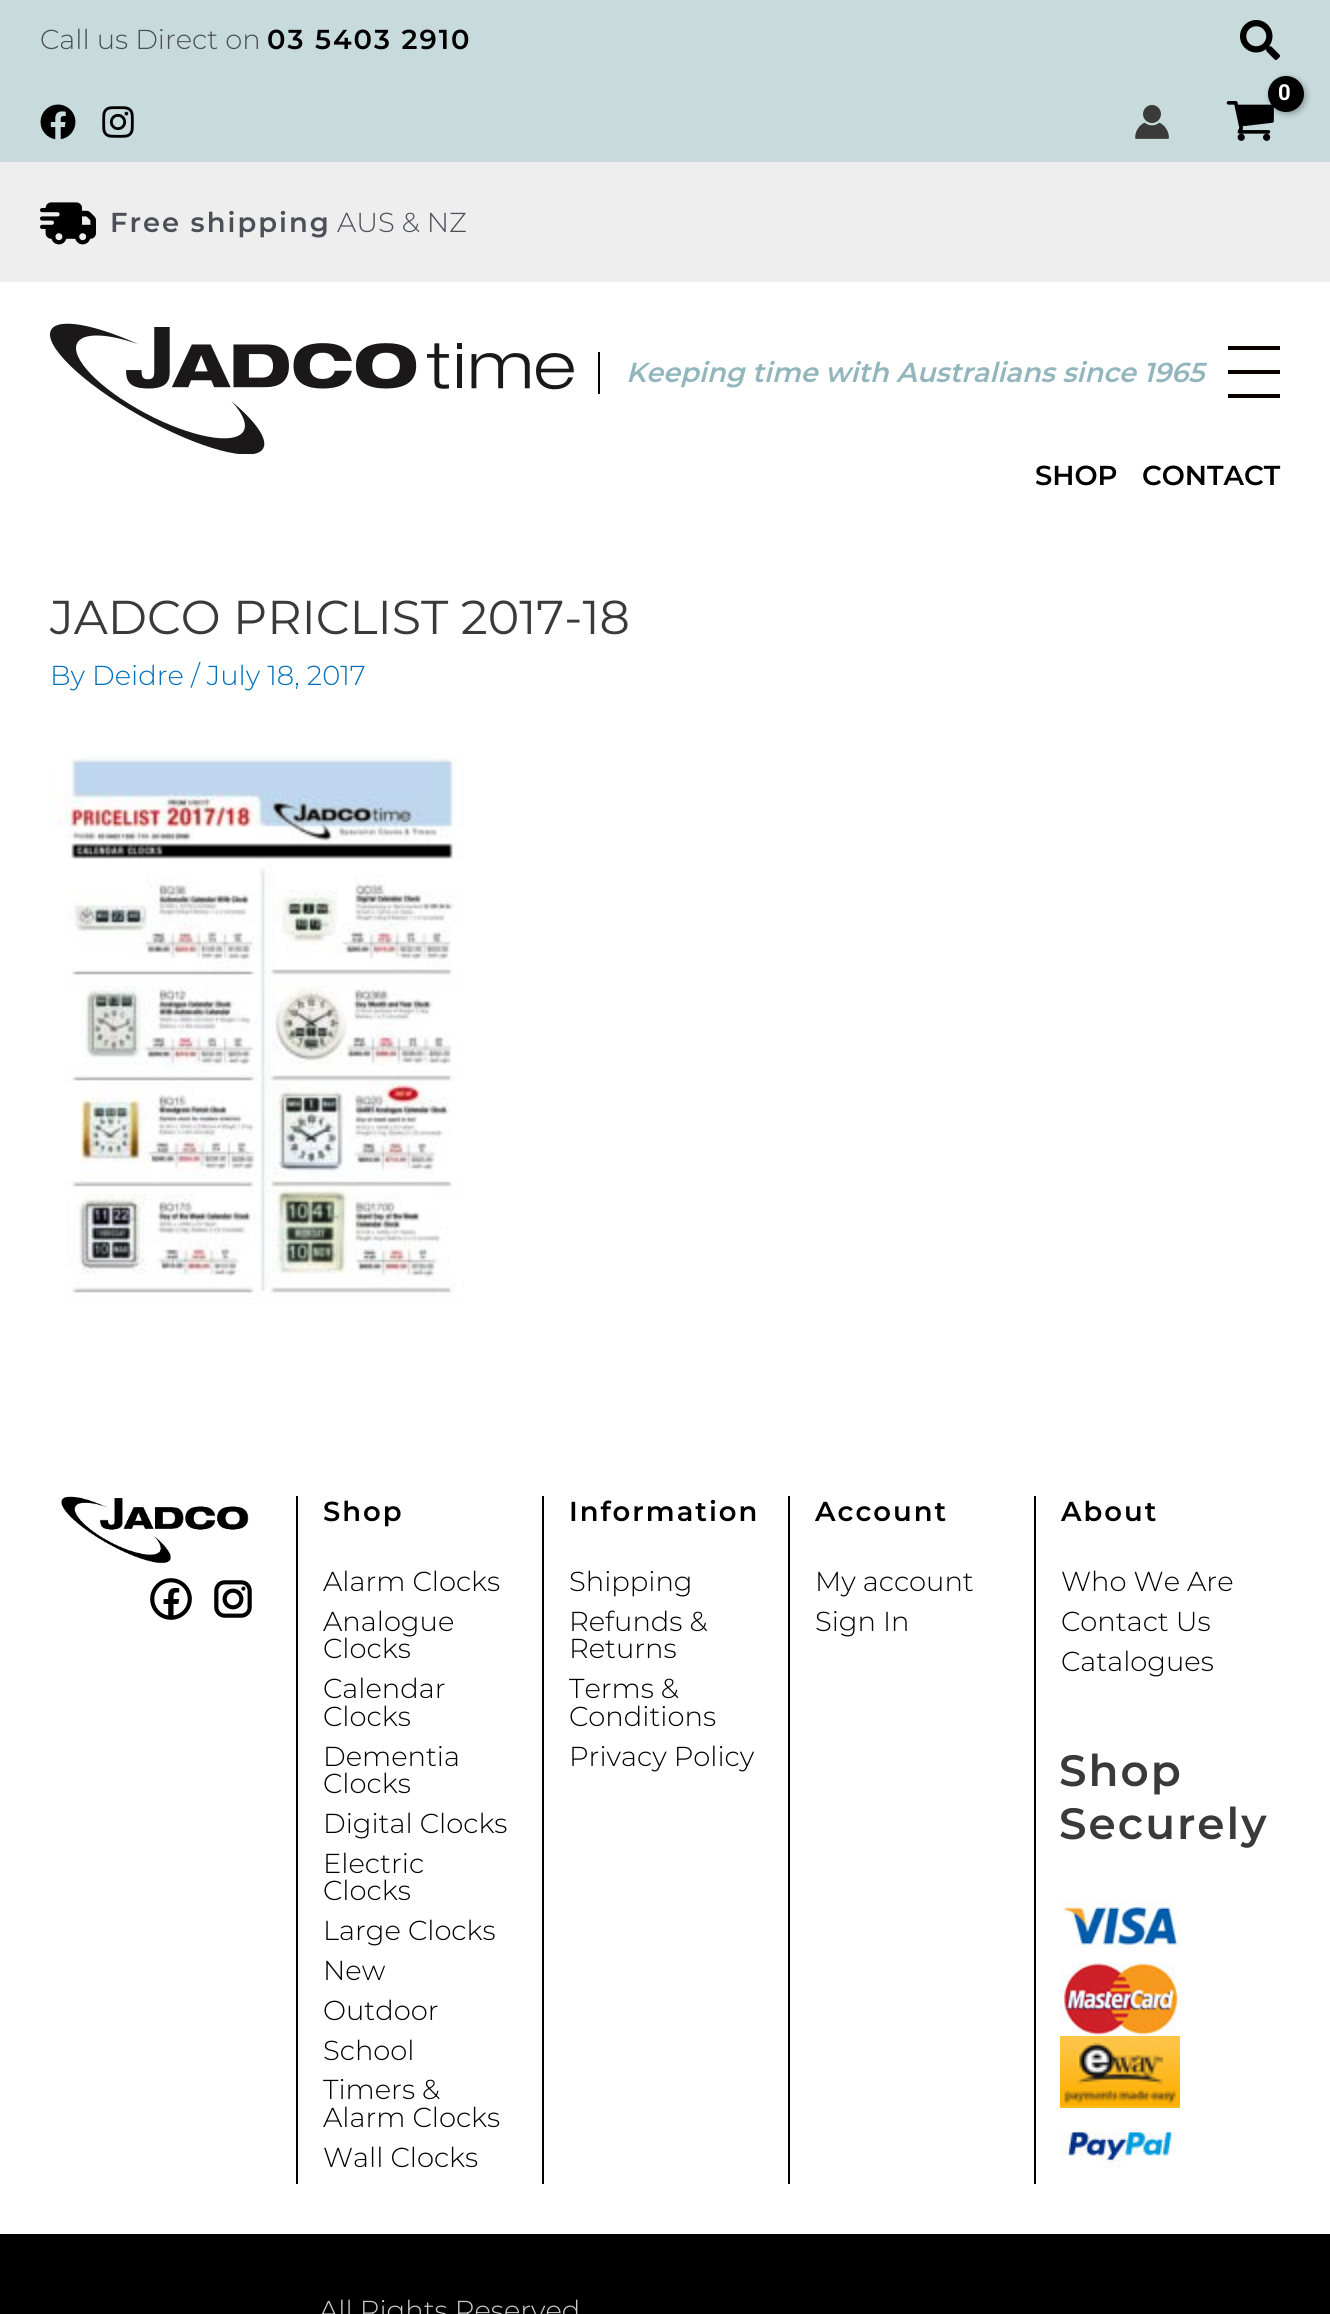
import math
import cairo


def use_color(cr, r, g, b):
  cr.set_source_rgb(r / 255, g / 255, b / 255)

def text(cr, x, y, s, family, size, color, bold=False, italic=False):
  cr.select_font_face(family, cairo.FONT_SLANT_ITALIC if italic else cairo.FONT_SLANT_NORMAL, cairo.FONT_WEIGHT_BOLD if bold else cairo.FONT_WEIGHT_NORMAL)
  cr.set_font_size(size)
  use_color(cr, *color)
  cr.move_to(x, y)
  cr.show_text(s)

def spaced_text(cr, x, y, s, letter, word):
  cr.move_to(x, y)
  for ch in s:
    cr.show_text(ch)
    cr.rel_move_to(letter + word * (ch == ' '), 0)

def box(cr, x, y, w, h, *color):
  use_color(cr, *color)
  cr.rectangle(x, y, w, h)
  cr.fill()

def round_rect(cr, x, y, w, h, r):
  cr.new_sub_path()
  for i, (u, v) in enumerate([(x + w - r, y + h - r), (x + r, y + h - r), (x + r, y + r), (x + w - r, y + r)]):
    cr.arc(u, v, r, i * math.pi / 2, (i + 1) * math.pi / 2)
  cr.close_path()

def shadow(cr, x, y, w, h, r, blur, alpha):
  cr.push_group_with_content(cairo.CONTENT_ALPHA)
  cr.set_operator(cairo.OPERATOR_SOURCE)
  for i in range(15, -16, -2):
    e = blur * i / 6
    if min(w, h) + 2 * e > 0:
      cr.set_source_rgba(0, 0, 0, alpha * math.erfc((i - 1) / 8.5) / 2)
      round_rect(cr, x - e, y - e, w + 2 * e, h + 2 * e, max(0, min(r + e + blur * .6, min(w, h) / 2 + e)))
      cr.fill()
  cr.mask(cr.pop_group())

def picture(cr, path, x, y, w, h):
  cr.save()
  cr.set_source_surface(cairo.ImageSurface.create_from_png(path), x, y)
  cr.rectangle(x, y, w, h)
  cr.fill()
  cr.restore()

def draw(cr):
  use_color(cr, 255, 255, 255)
  cr.paint()
  box(cr, 0, 0, 1330, 162, 199, 218, 220)
  picture(cr, "img_01.png", 1240, 20, 40, 40)
  picture(cr, "img_02.png", 1226, 101, 48, 40)
  use_color(cr, 0, 0, 0)
  shadow(cr, 1270, 78, 36, 36, 18, 3, 0.3)
  use_color(cr, 0, 0, 0)
  cr.arc(1286, 94, 18, 0, 2 * math.pi)
  cr.fill()
  picture(cr, "img_03.png", 1135, 105, 34, 34)
  picture(cr, "img_04.png", 40, 104, 36, 36)
  picture(cr, "img_05.png", 102, 106, 32, 32)
  box(cr, 0, 162, 1330, 120, 238, 238, 238)
  picture(cr, "img_06.png", 40, 202, 56, 43)
  picture(cr, "img_07.png", 50, 323, 524, 131)
  box(cr, 598, 352, 2, 42, 0, 0, 0)
  box(cr, 1228, 346, 52, 4, 8, 0, 0)
  box(cr, 1228, 370, 52, 4, 8, 0, 0)
  box(cr, 1228, 394, 52, 4, 8, 0, 0)
  picture(cr, "img_08.png", 50, 755, 414, 549)
  picture(cr, "img_09.png", 61, 1496, 188, 68)
  picture(cr, "img_10.png", 150, 1578, 42, 42)
  picture(cr, "img_11.png", 214, 1580, 38, 38)
  box(cr, 296, 1496, 2, 688, 0, 0, 0)
  box(cr, 542, 1496, 2, 688, 0, 0, 0)
  box(cr, 788, 1496, 2, 688, 0, 0, 0)
  box(cr, 1034, 1496, 2, 688, 0, 0, 0)
  picture(cr, "img_12.png", 1060, 1901, 120, 47)
  picture(cr, "img_13.png", 1060, 1962, 120, 74)
  picture(cr, "img_14.png", 1060, 2036, 120, 72)
  picture(cr, "img_15.png", 1060, 2130, 120, 38)
  box(cr, 0, 2234, 1330, 80, 0, 0, 0)
  text(cr, 40, 49, "Call us Direct on", "Montserrat Light", 27.4, (75, 79, 88))
  cr.select_font_face("Montserrat SemiBold")
  use_color(cr, 0, 0, 0)
  spaced_text(cr, 267, 49, "03 5403 2910", 2, 0)
  cr.select_font_face("Roboto", cairo.FONT_SLANT_NORMAL, cairo.FONT_WEIGHT_BOLD)
  cr.set_font_size(22)
  use_color(cr, 255, 255, 255)
  spaced_text(cr, 1278, 100, "0", -1, 0)
  cr.select_font_face("Montserrat SemiBold")
  cr.set_font_size(27.4)
  use_color(cr, 75, 79, 88)
  spaced_text(cr, 110, 232, "Free shipping", 2, 0)
  text(cr, 337, 232, "AUS & NZ", "Montserrat Light", 27.4, (75, 79, 88))
  text(cr, 626, 382, "Keeping time with Australians since 1965", "Montserrat SemiBold", 27.4, (145, 182, 187), italic=True)
  text(cr, 1035, 485, "SHOP", "Montserrat SemiBold", 27.4, (0, 0, 0))
  text(cr, 1142, 485, "CONTACT", "Montserrat SemiBold", 27.4, (0, 0, 0))
  text(cr, 50, 634, "JADCO PRICLIST 2017-18", "Montserrat", 47.5, (58, 58, 58))
  text(cr, 50, 685, "By Deidre / July 18, 2017", "Montserrat Light", 27.4, (1, 112, 185))
  cr.select_font_face("Montserrat SemiBold")
  use_color(cr, 0, 0, 0)
  spaced_text(cr, 323, 1521, "Shop", 2, 0)
  text(cr, 323, 1591, "Alarm Clocks", "Montserrat Light", 27.4, (0, 0, 0))
  text(cr, 323, 1631, "Analogue", "Montserrat Light", 27.4, (0, 0, 0))
  text(cr, 323, 1658, "Clocks", "Montserrat Light", 27.4, (0, 0, 0))
  text(cr, 323, 1698, "Calendar", "Montserrat Light", 27.4, (0, 0, 0))
  text(cr, 323, 1726, "Clocks", "Montserrat Light", 27.4, (0, 0, 0))
  text(cr, 323, 1766, "Dementia", "Montserrat Light", 27.4, (0, 0, 0))
  text(cr, 323, 1793, "Clocks", "Montserrat Light", 27.4, (0, 0, 0))
  text(cr, 323, 1833, "Digital Clocks", "Montserrat Light", 27.4, (0, 0, 0))
  text(cr, 323, 1873, "Electric", "Montserrat Light", 27.4, (0, 0, 0))
  text(cr, 323, 1900, "Clocks", "Montserrat Light", 27.4, (0, 0, 0))
  text(cr, 323, 1940, "Large Clocks", "Montserrat Light", 27.4, (0, 0, 0))
  text(cr, 323, 1980, "New", "Montserrat Light", 27.4, (0, 0, 0))
  text(cr, 323, 2020, "Outdoor", "Montserrat Light", 27.4, (0, 0, 0))
  text(cr, 323, 2060, "School", "Montserrat Light", 27.4, (0, 0, 0))
  text(cr, 323, 2099, "Timers &", "Montserrat Light", 27.4, (0, 0, 0))
  text(cr, 323, 2127, "Alarm Clocks", "Montserrat Light", 27.4, (0, 0, 0))
  text(cr, 323, 2167, "Wall Clocks", "Montserrat Light", 27.4, (0, 0, 0))
  cr.select_font_face("Montserrat SemiBold")
  spaced_text(cr, 569, 1521, "Information", 2, 0)
  text(cr, 569, 1591, "Shipping", "Montserrat Light", 27.4, (0, 0, 0))
  text(cr, 569, 1631, "Refunds &", "Montserrat Light", 27.4, (0, 0, 0))
  text(cr, 569, 1658, "Returns", "Montserrat Light", 27.4, (0, 0, 0))
  text(cr, 569, 1698, "Terms &", "Montserrat Light", 27.4, (0, 0, 0))
  text(cr, 569, 1726, "Conditions", "Montserrat Light", 27.4, (0, 0, 0))
  text(cr, 569, 1766, "Privacy Policy", "Montserrat Light", 27.4, (0, 0, 0))
  cr.select_font_face("Montserrat SemiBold")
  spaced_text(cr, 815, 1521, "Account", 2, 0)
  text(cr, 815, 1591, "My account", "Montserrat Light", 27.4, (0, 0, 0))
  text(cr, 815, 1631, "Sign In", "Montserrat Light", 27.4, (0, 0, 0))
  cr.select_font_face("Montserrat SemiBold")
  spaced_text(cr, 1061, 1521, "About", 2, 0)
  text(cr, 1061, 1591, "Who We Are", "Montserrat Light", 27.4, (0, 0, 0))
  text(cr, 1061, 1631, "Contact Us", "Montserrat Light", 27.4, (0, 0, 0))
  text(cr, 1061, 1671, "Catalogues", "Montserrat Light", 27.4, (0, 0, 0))
  cr.select_font_face("Montserrat SemiBold")
  cr.set_font_size(43.75)
  use_color(cr, 58, 58, 58)
  spaced_text(cr, 1059, 1786, "Shop", 2, 0)
  spaced_text(cr, 1059, 1839, "Securely", 2, 0)
  text(cr, 319, 2320, "All Rights Reserved", "Montserrat Light", 27.4, (204, 204, 204))


surface = cairo.ImageSurface(cairo.FORMAT_RGB24, 1330, 2314)
cr = cairo.Context(surface)
options = cairo.FontOptions()
options.set_hint_metrics(cairo.HINT_METRICS_OFF)
options.set_hint_style(cairo.HINT_STYLE_NONE)
cr.set_font_options(options)
cr.set_miter_limit(4)
draw(cr)
surface.write_to_png("out.png")
